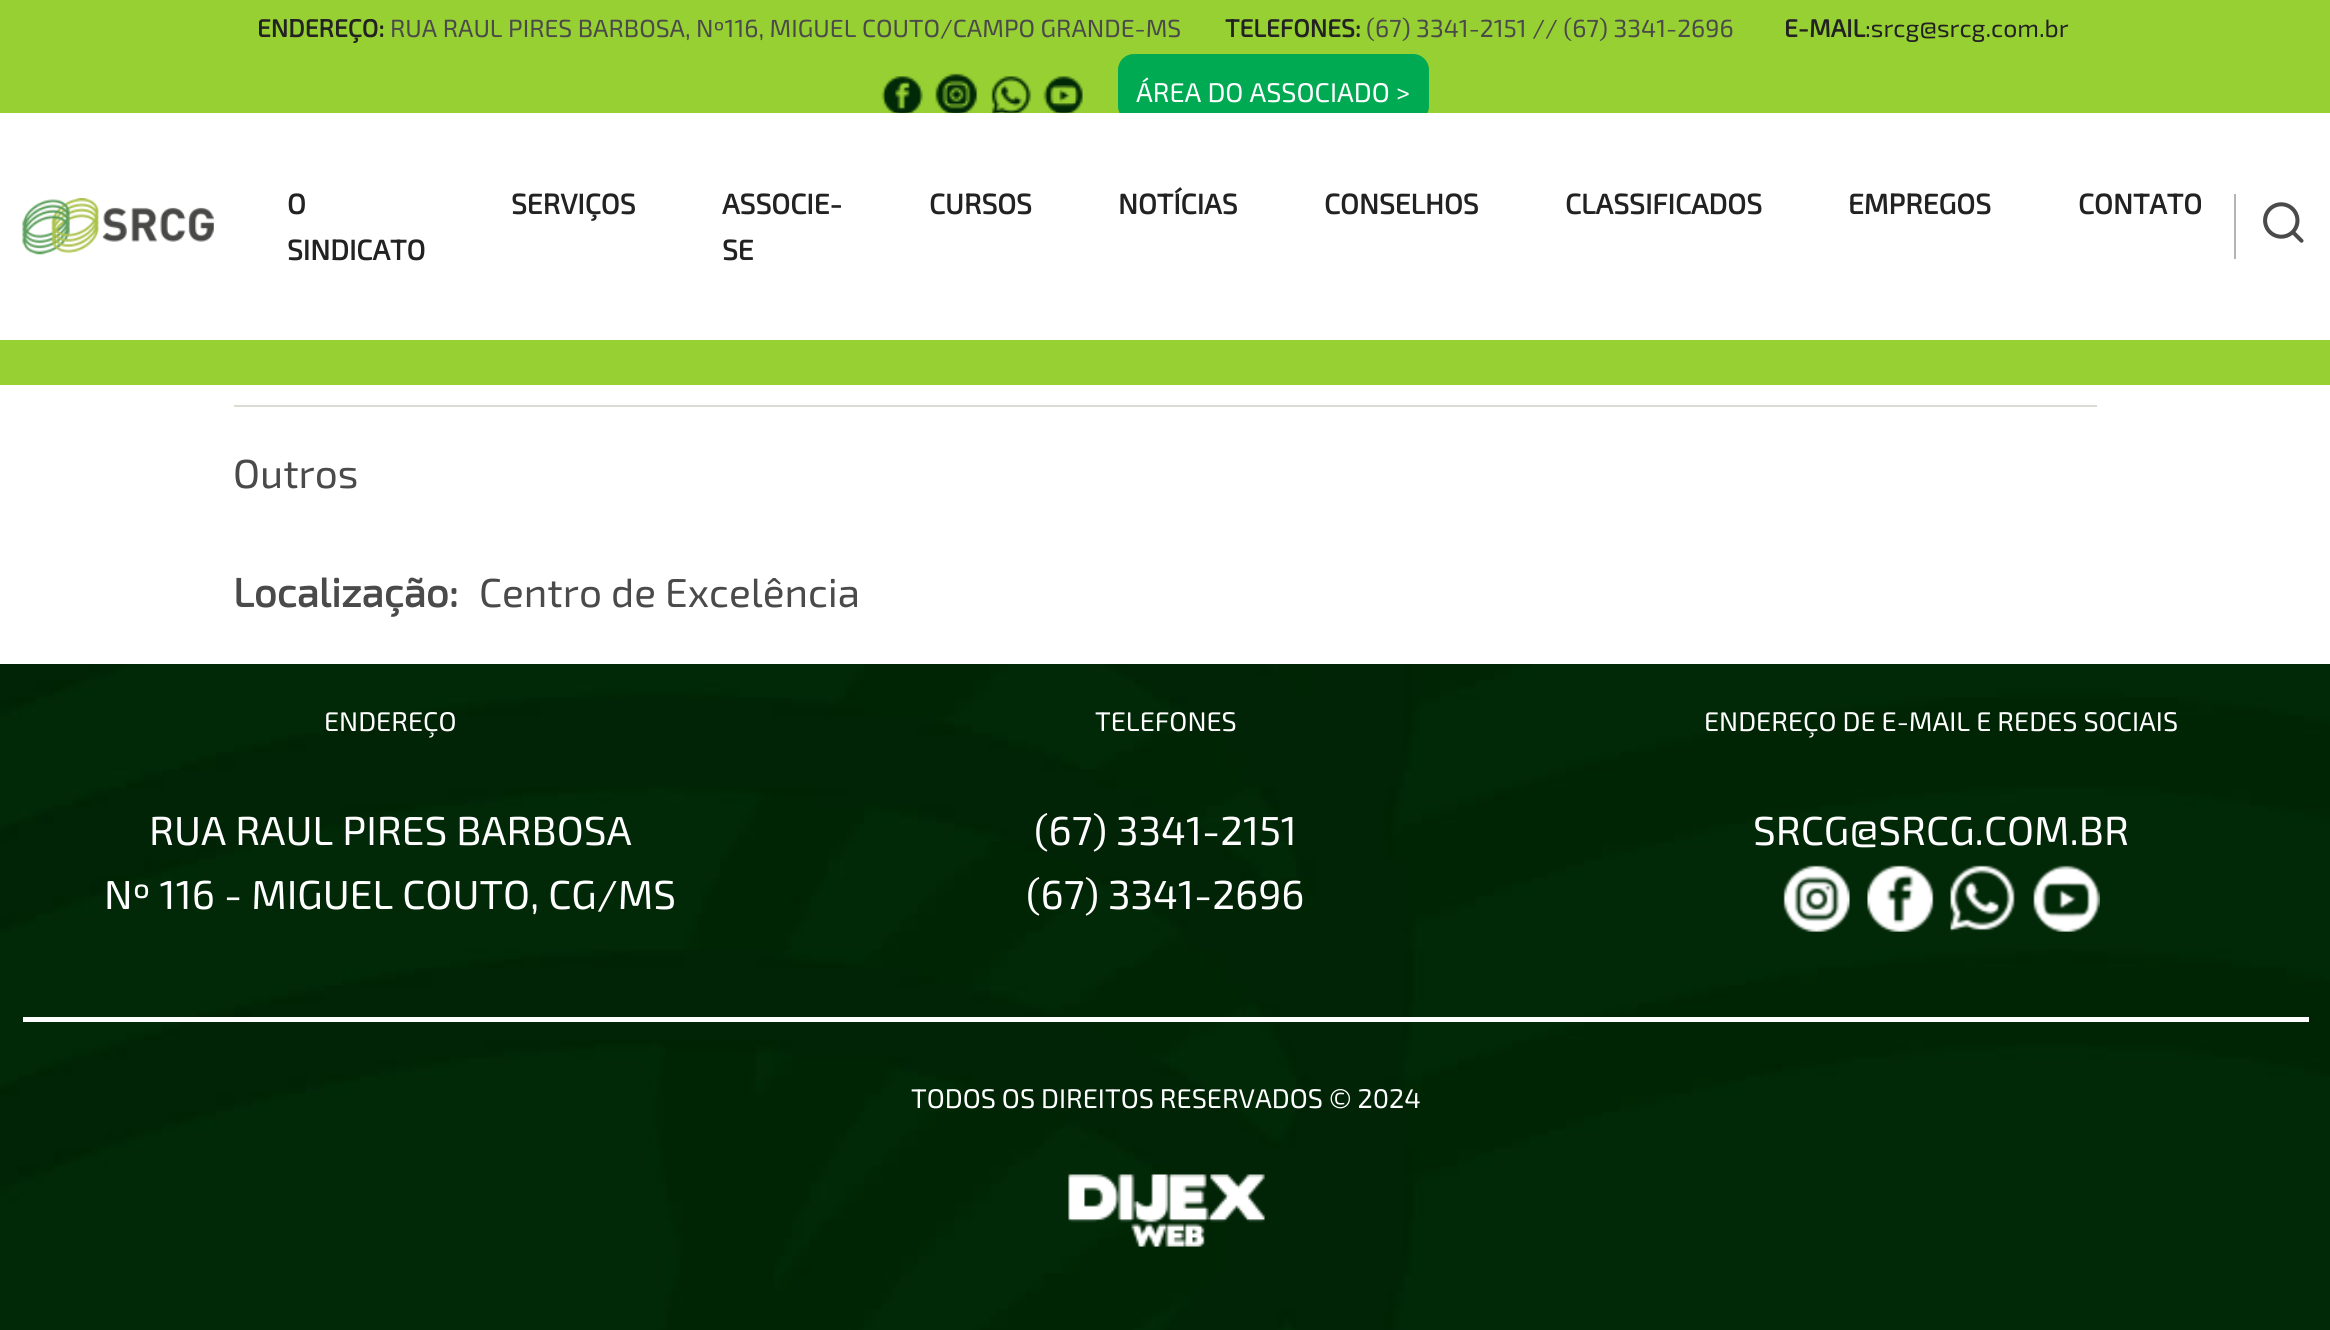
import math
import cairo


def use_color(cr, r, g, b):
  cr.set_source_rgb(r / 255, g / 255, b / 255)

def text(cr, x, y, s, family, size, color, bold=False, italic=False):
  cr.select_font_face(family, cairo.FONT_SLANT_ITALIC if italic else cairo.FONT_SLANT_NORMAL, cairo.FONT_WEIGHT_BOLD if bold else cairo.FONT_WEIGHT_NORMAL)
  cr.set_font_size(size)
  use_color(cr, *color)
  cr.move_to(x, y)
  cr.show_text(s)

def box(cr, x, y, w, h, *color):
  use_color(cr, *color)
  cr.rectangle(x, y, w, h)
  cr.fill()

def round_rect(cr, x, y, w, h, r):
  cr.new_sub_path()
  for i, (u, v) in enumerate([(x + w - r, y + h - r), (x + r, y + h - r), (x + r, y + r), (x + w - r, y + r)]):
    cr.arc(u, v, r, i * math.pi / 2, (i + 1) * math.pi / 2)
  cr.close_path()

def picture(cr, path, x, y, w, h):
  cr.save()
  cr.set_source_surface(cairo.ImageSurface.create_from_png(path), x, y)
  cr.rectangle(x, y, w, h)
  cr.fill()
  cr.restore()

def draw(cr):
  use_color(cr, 255, 255, 255)
  cr.paint()
  box(cr, 0, 0, 2330, 113, 151, 208, 50)
  picture(cr, "img_01.png", 881, 76, 43, 37)
  picture(cr, "img_02.png", 935, 73, 43, 40)
  picture(cr, "img_03.png", 990, 76, 42, 37)
  picture(cr, "img_04.png", 1043, 76, 40, 37)
  use_color(cr, 0, 170, 83)
  round_rect(cr, 1118, 54, 311, 68, 16)
  cr.fill()
  box(cr, 1119, 113, 309, 9, 255, 255, 255)
  picture(cr, "img_05.png", 22, 198, 192, 57)
  box(cr, 2234, 194, 2, 65, 180, 180, 180)
  picture(cr, "img_06.png", 2263, 202, 41, 41)
  box(cr, 0, 340, 2330, 45, 151, 208, 50)
  box(cr, 234, 405, 1863, 2, 219, 219, 211)
  picture(cr, "img_07.png", 0, 664, 2330, 666)
  picture(cr, "img_08.png", 1783, 865, 67, 67)
  picture(cr, "img_09.png", 1867, 865, 67, 67)
  picture(cr, "img_10.png", 1950, 865, 65, 67)
  picture(cr, "img_11.png", 2033, 865, 67, 67)
  box(cr, 23, 1017, 2286, 5, 255, 255, 255)
  picture(cr, "img_12.png", 1068, 1174, 197, 73)
  text(cr, 257, 37, "ENDEREÇO:", "Exo 2", 24.75, (34, 34, 34), bold=True)
  text(cr, 390, 37, "RUA RAUL PIRES BARBOSA, Nº116, MIGUEL COUTO/CAMPO GRANDE-MS", "Exo 2", 24.75, (74, 74, 74))
  text(cr, 1225, 37, "TELEFONES:", "Exo 2", 24.75, (34, 34, 34), bold=True)
  text(cr, 1366, 37, "(67) 3341-2151 // (67) 3341-2696", "Exo 2", 24.75, (74, 74, 74))
  text(cr, 1784, 37, "E-MAIL", "Exo 2", 24.75, (34, 34, 34), bold=True)
  text(cr, 1865, 37, ":srcg@srcg.com.br", "Exo 2", 24.75, (34, 34, 34))
  text(cr, 1136, 102, "ÁREA DO ASSOCIADO >", "Exo 2", 27, (255, 255, 255))
  text(cr, 287, 214, "O", "Exo 2", 28.25, (34, 34, 34), bold=True)
  text(cr, 287, 260, "SINDICATO", "Exo 2", 28.25, (34, 34, 34), bold=True)
  text(cr, 511, 214, "SERVIÇOS", "Exo 2", 28.25, (34, 34, 34), bold=True)
  text(cr, 722, 214, "ASSOCIE-", "Exo 2", 28.25, (34, 34, 34), bold=True)
  text(cr, 722, 260, "SE", "Exo 2", 28.25, (34, 34, 34), bold=True)
  text(cr, 929, 214, "CURSOS", "Exo 2", 28.25, (34, 34, 34), bold=True)
  text(cr, 1118, 214, "NOTÍCIAS", "Exo 2", 28.25, (34, 34, 34), bold=True)
  text(cr, 1324, 214, "CONSELHOS", "Exo 2", 28.25, (34, 34, 34), bold=True)
  text(cr, 1565, 214, "CLASSIFICADOS", "Exo 2", 28.25, (34, 34, 34), bold=True)
  text(cr, 1848, 214, "EMPREGOS", "Exo 2", 28.25, (34, 34, 34), bold=True)
  text(cr, 2078, 214, "CONTATO", "Exo 2", 28.25, (34, 34, 34), bold=True)
  text(cr, 233, 488, "Outros", "Exo 2", 40.5, (74, 74, 74))
  text(cr, 233, 607, "Localização:", "Exo 2", 40.5, (74, 74, 74), bold=True)
  text(cr, 479, 607, "Centro de Excelência", "Exo 2", 40.5, (74, 74, 74))
  text(cr, 324, 731, "ENDEREÇO", "Exo 2", 27, (255, 255, 255))
  text(cr, 149, 845, "RUA RAUL PIRES BARBOSA", "Exo 2", 40.5, (255, 255, 255))
  text(cr, 104, 909, "Nº 116 - MIGUEL COUTO, CG/MS", "Exo 2", 40.5, (255, 255, 255))
  text(cr, 1095, 731, "TELEFONES", "Exo 2", 27, (255, 255, 255))
  text(cr, 1034, 845, "(67) 3341-2151", "Exo 2", 40.5, (255, 255, 255))
  text(cr, 1026, 909, "(67) 3341-2696", "Exo 2", 40.5, (255, 255, 255))
  text(cr, 1704, 731, "ENDEREÇO DE E-MAIL E REDES SOCIAIS", "Exo 2", 27, (255, 255, 255))
  text(cr, 1753, 845, "SRCG@SRCG.COM.BR", "Exo 2", 40.5, (255, 255, 255))
  text(cr, 911, 1108, "TODOS OS DIREITOS RESERVADOS © 2024", "Exo 2", 27, (255, 255, 255))


surface = cairo.ImageSurface(cairo.FORMAT_RGB24, 2330, 1330)
cr = cairo.Context(surface)
options = cairo.FontOptions()
options.set_hint_metrics(cairo.HINT_METRICS_OFF)
options.set_hint_style(cairo.HINT_STYLE_NONE)
cr.set_font_options(options)
cr.set_miter_limit(4)
draw(cr)
surface.write_to_png("out.png")
